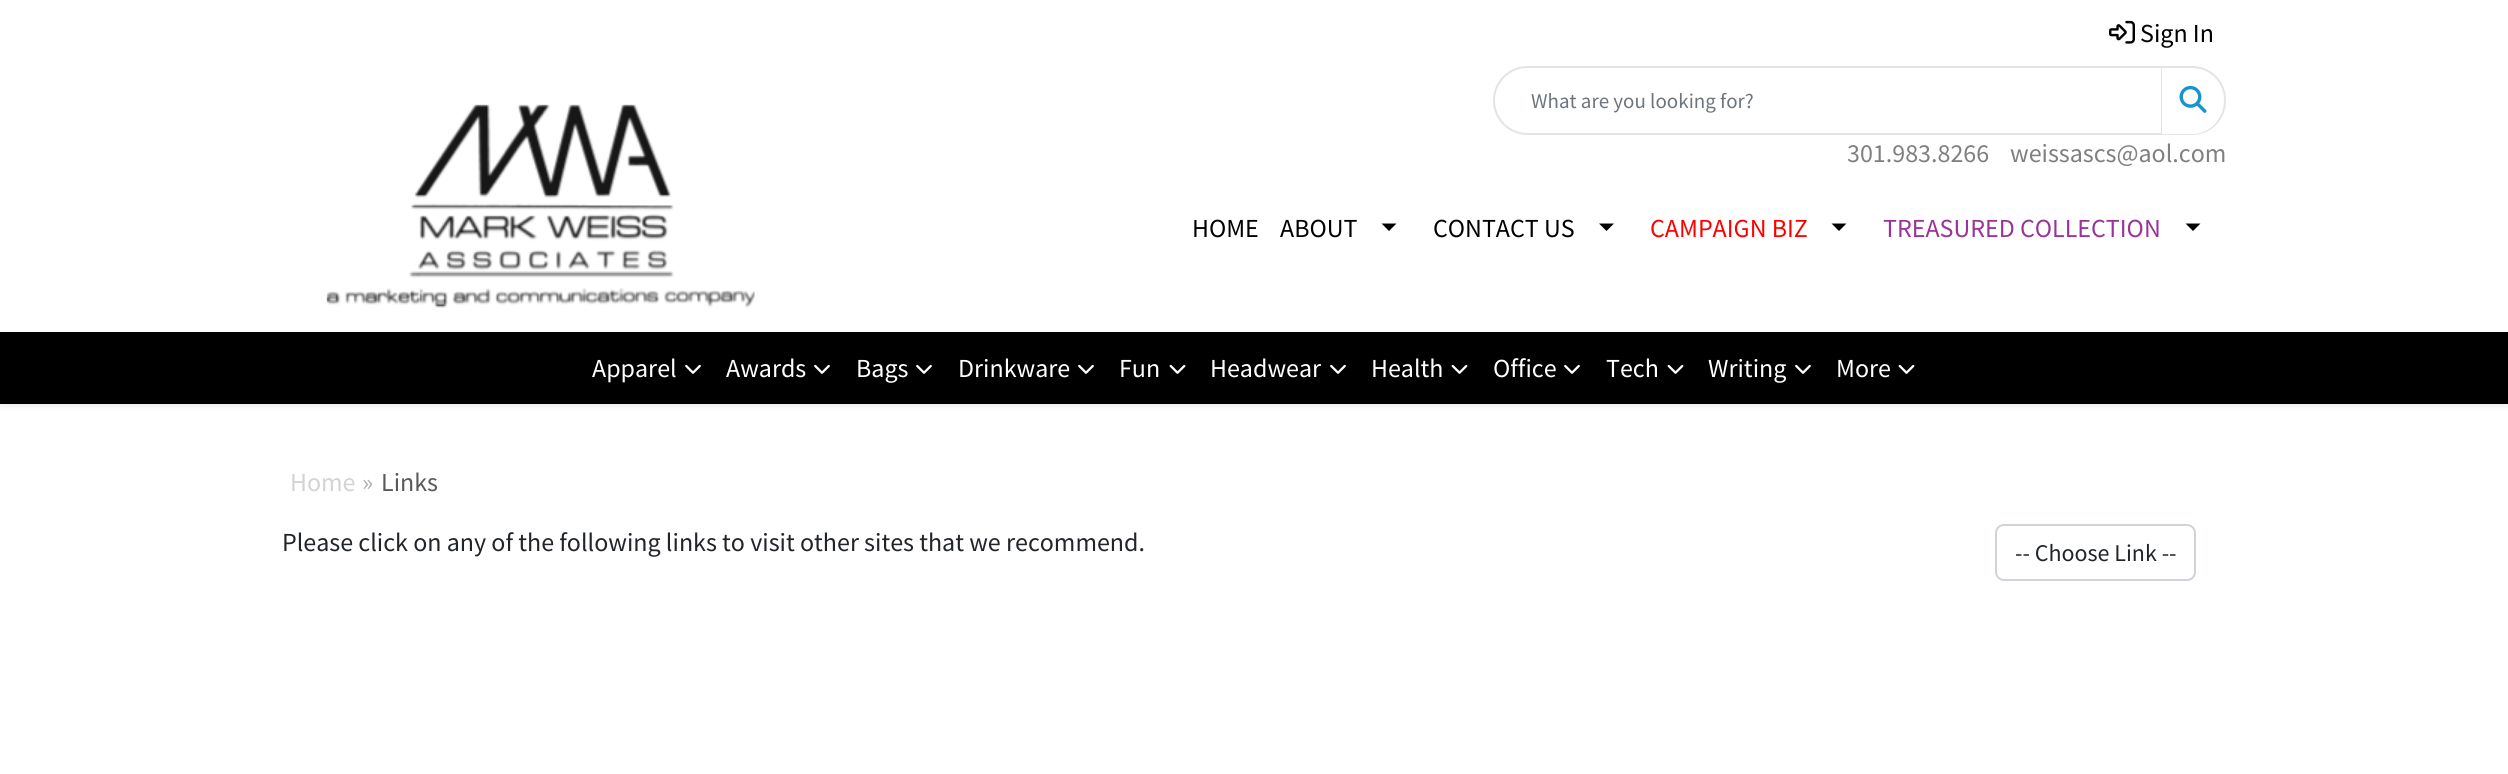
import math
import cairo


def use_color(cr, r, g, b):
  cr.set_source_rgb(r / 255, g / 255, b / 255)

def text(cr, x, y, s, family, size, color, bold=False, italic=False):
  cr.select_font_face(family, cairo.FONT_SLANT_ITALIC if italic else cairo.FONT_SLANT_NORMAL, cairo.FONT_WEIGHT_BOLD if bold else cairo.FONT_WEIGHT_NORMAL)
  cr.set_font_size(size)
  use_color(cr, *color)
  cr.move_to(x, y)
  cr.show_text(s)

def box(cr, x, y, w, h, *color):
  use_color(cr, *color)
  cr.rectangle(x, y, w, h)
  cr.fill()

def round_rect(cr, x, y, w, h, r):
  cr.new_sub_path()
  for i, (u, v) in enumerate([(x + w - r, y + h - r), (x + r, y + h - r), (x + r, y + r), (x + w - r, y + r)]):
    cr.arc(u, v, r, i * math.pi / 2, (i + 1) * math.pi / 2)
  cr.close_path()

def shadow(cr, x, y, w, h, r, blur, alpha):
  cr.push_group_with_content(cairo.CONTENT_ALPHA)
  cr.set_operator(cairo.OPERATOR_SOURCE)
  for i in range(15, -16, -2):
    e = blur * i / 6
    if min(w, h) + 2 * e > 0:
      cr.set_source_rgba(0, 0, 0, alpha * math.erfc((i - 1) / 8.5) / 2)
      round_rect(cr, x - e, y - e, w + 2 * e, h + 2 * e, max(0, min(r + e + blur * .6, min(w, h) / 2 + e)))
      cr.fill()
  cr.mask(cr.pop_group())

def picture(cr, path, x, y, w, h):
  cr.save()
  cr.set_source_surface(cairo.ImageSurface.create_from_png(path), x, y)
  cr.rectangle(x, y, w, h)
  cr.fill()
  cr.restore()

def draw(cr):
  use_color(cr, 255, 255, 255)
  cr.paint()
  picture(cr, "img_01.png", 2109, 20, 26, 24)
  picture(cr, "img_02.png", 326, 104, 429, 204)
  cr.new_path()
  cr.move_to(1527.5, 67)
  cr.line_to(2162, 67)
  cr.line_to(2162, 134)
  cr.line_to(1527.5, 134)
  cr.curve_to(1509, 134, 1494, 119, 1494, 100.5)
  cr.curve_to(1494, 82, 1509, 67, 1527.5, 67)
  cr.close_path()
  use_color(cr, 228, 228, 228)
  cr.stroke()
  use_color(cr, 255, 255, 255)
  cr.new_path()
  cr.move_to(2162, 68)
  cr.line_to(2192, 68)
  cr.curve_to(2210, 68, 2225, 83, 2225, 101)
  cr.curve_to(2225, 119, 2210, 134, 2192, 134)
  cr.line_to(2162, 134)
  cr.close_path()
  cr.fill()
  use_color(cr, 228, 228, 228)
  cr.set_fill_rule(cairo.FILL_RULE_EVEN_ODD)
  cr.new_path()
  cr.move_to(2162, 66)
  cr.line_to(2192, 66)
  cr.curve_to(2211, 66, 2226, 81, 2226, 100)
  cr.curve_to(2226, 120, 2211, 135, 2192, 135)
  cr.line_to(2162, 135)
  cr.close_path()
  cr.move_to(2162, 68)
  cr.line_to(2192, 68)
  cr.curve_to(2210, 68, 2224, 82, 2224, 100)
  cr.curve_to(2224, 119, 2210, 134, 2192, 134)
  cr.line_to(2162, 134)
  cr.close_path()
  cr.fill()
  picture(cr, "img_03.png", 2179, 85, 28, 28)
  use_color(cr, 0, 0, 0)
  cr.set_fill_rule(cairo.FILL_RULE_WINDING)
  cr.new_path()
  cr.move_to(1381.5, 223.5)
  cr.line_to(1396.5, 223.5)
  cr.line_to(1389, 231)
  cr.close_path()
  cr.fill()
  cr.new_path()
  cr.move_to(1599, 223.5)
  cr.line_to(1614, 223.5)
  cr.line_to(1606.5, 231)
  cr.close_path()
  cr.fill()
  cr.new_path()
  cr.move_to(1831.5, 223.5)
  cr.line_to(1846.5, 223.5)
  cr.line_to(1839, 231)
  cr.close_path()
  cr.fill()
  cr.new_path()
  cr.move_to(2185.5, 223.5)
  cr.line_to(2200.5, 223.5)
  cr.line_to(2193, 231)
  cr.close_path()
  cr.fill()
  use_color(cr, 0, 0, 0)
  shadow(cr, 0, 335, 2508, 72, 0, 3, 0.07)
  box(cr, 0, 332, 2508, 72, 0, 0, 0)
  picture(cr, "img_04.png", 685, 364, 16, 10)
  picture(cr, "img_04.png", 814, 364, 16, 10)
  picture(cr, "img_04.png", 916, 364, 16, 10)
  picture(cr, "img_04.png", 1078, 364, 16, 10)
  picture(cr, "img_05.png", 1169, 364, 17, 10)
  picture(cr, "img_04.png", 1330, 364, 16, 10)
  picture(cr, "img_05.png", 1451, 364, 17, 10)
  picture(cr, "img_04.png", 1564, 364, 16, 10)
  picture(cr, "img_05.png", 1667, 364, 17, 10)
  picture(cr, "img_04.png", 1795, 364, 16, 10)
  picture(cr, "img_05.png", 1898, 364, 17, 10)
  round_rect(cr, 1996, 525, 199, 55, 8)
  use_color(cr, 206, 212, 218)
  cr.stroke()
  text(cr, 2140, 42, "Sign In", "Source Sans Pro", 26, (0, 0, 0))
  text(cr, 1531, 108, "What are you looking for?", "Source Sans Pro", 21, (108, 117, 125))
  text(cr, 1847, 162, "301.983.8266", "Source Sans Pro", 26, (128, 128, 128))
  text(cr, 2010, 162, "weissascs@aol.com", "Source Sans Pro", 26, (128, 128, 128))
  text(cr, 1192, 237, "HOME", "Source Sans Pro", 26, (0, 0, 0))
  text(cr, 1280, 237, "ABOUT", "Source Sans Pro", 26, (0, 0, 0))
  text(cr, 1433, 237, "CONTACT US", "Source Sans Pro", 26, (0, 0, 0))
  text(cr, 1650, 237, "CAMPAIGN BIZ", "Source Sans Pro", 26, (255, 0, 0))
  text(cr, 1883, 237, "TREASURED COLLECTION", "Source Sans Pro", 26, (153, 51, 153))
  text(cr, 592, 377, "Apparel", "Source Sans Pro", 26, (255, 255, 255))
  text(cr, 726, 377, "Awards", "Source Sans Pro", 26, (255, 255, 255))
  text(cr, 856, 377, "Bags", "Source Sans Pro", 26, (255, 255, 255))
  text(cr, 958, 377, "Drinkware", "Source Sans Pro", 26, (255, 255, 255))
  text(cr, 1119, 377, "Fun", "Source Sans Pro", 26, (255, 255, 255))
  text(cr, 1210, 377, "Headwear", "Source Sans Pro", 26, (255, 255, 255))
  text(cr, 1371, 377, "Health", "Source Sans Pro", 26, (255, 255, 255))
  text(cr, 1493, 377, "Office", "Source Sans Pro", 26, (255, 255, 255))
  text(cr, 1606, 377, "Tech", "Source Sans Pro", 26, (255, 255, 255))
  text(cr, 1708, 377, "Writing", "Source Sans Pro", 26, (255, 255, 255))
  text(cr, 1836, 377, "More", "Source Sans Pro", 26, (255, 255, 255))
  text(cr, 290, 491, "Home", "Source Sans Pro", 26, (211, 211, 211))
  text(cr, 362, 491, "»", "Source Sans Pro", 26, (178, 177, 177))
  text(cr, 381, 491, "Links", "Source Sans Pro", 26, (91, 90, 90))
  text(cr, 282, 551, "Please click on any of the following links to visit other sites that we recommend.", "Source Sans Pro", 26, (33, 37, 41))
  text(cr, 2015, 561, "-- Choose Link --", "Source Sans Pro", 24, (33, 37, 41))


surface = cairo.ImageSurface(cairo.FORMAT_RGB24, 2508, 774)
cr = cairo.Context(surface)
options = cairo.FontOptions()
options.set_hint_metrics(cairo.HINT_METRICS_OFF)
options.set_hint_style(cairo.HINT_STYLE_NONE)
cr.set_font_options(options)
cr.set_miter_limit(4)
draw(cr)
surface.write_to_png("out.png")
